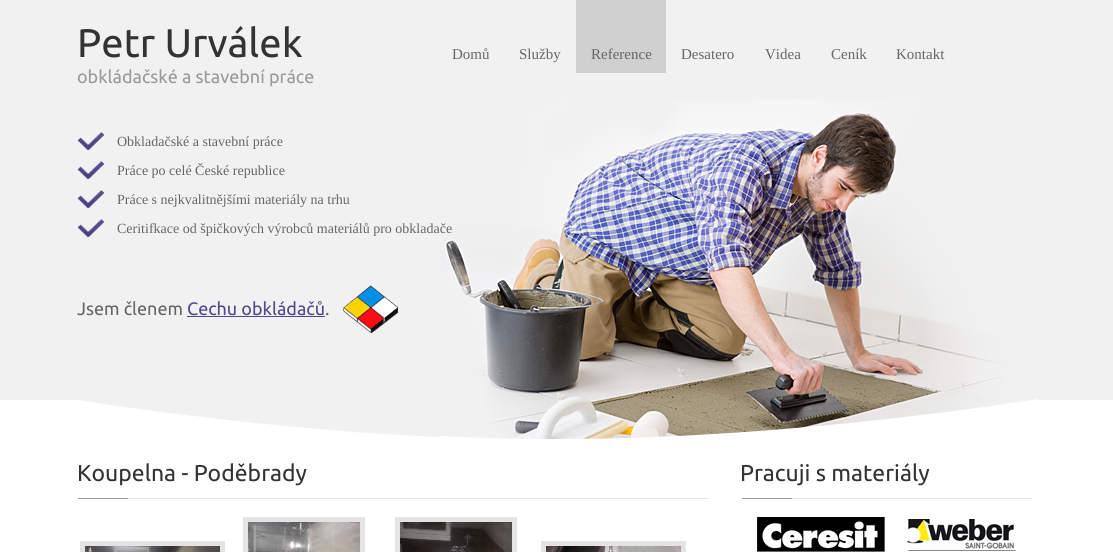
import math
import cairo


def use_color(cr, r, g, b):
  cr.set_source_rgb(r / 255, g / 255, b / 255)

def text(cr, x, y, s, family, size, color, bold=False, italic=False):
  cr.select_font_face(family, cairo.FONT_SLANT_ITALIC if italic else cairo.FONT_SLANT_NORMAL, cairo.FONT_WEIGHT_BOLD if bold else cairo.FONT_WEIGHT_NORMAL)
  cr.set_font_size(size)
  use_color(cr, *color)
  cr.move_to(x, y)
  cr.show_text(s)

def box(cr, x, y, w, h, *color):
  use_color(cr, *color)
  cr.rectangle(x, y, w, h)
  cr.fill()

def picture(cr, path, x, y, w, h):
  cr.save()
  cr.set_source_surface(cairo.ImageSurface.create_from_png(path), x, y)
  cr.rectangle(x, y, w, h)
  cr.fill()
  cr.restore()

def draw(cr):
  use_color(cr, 255, 255, 255)
  cr.paint()
  box(cr, 0, 0, 1113, 400, 241, 241, 241)
  box(cr, 576, 0, 90, 73, 208, 208, 208)
  picture(cr, "img_01.png", 77, 132, 28, 19)
  picture(cr, "img_01.png", 77, 161, 28, 19)
  picture(cr, "img_01.png", 77, 190, 28, 19)
  picture(cr, "img_01.png", 77, 219, 28, 19)
  picture(cr, "img_02.png", 440, 99, 598, 340)
  box(cr, 187, 316, 138, 1, 79, 72, 141)
  picture(cr, "img_03.png", 343, 285, 56, 49)
  picture(cr, "img_04.png", 80, 400, 360, 37)
  picture(cr, "img_05.png", 78, 498, 630, 1)
  cr.rectangle(82.5, 543.5, 140, 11)
  use_color(cr, 227, 227, 227)
  cr.set_line_width(5)
  cr.stroke()
  picture(cr, "img_06.png", 85, 546, 135, 6)
  cr.rectangle(245.5, 519.5, 117, 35)
  cr.stroke()
  picture(cr, "img_07.png", 248, 522, 112, 30)
  cr.rectangle(397.5, 519.5, 117, 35)
  cr.stroke()
  picture(cr, "img_08.png", 400, 522, 112, 30)
  cr.rectangle(543.5, 543.5, 140, 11)
  cr.stroke()
  picture(cr, "img_09.png", 546, 546, 135, 6)
  picture(cr, "img_10.png", 742, 498, 290, 1)
  picture(cr, "img_11.png", 757, 517, 128, 35)
  picture(cr, "img_12.png", 907, 519, 109, 32)
  text(cr, 77, 57, "Petr Urválek", "Ubuntu", 40, (51, 51, 51))
  text(cr, 452, 59, "Domů", "Liberation Serif", 15, (102, 102, 102))
  text(cr, 519, 59, "Služby", "Liberation Serif", 15, (102, 102, 102))
  text(cr, 591, 59, "Reference", "Liberation Serif", 15, (102, 102, 102))
  text(cr, 681, 59, "Desatero", "Liberation Serif", 15, (102, 102, 102))
  text(cr, 765, 59, "Videa", "Liberation Serif", 15, (102, 102, 102))
  text(cr, 831, 59, "Ceník", "Liberation Serif", 15, (102, 102, 102))
  text(cr, 896, 59, "Kontakt", "Liberation Serif", 15, (102, 102, 102))
  text(cr, 77, 83, "obkládačské a stavební práce", "Ubuntu", 18, (153, 153, 153))
  text(cr, 117, 146, "Obkladačské a stavební práce", "Liberation Serif", 14, (102, 102, 102))
  text(cr, 117, 175, "Práce po celé České republice", "Liberation Serif", 14, (102, 102, 102))
  text(cr, 117, 204, "Práce s nejkvalitnějšími materiály na trhu", "Liberation Serif", 14, (102, 102, 102))
  text(cr, 117, 233, "Ceritifkace od špičkových výrobců materiálů pro obkladače", "Liberation Serif", 14, (102, 102, 102))
  text(cr, 77, 315, "Jsem členem", "Ubuntu", 18, (102, 102, 102))
  text(cr, 187, 315, "Cechu obkládačů", "Ubuntu", 18, (79, 72, 141))
  text(cr, 325, 315, ".", "Ubuntu", 18, (102, 102, 102))
  text(cr, 77, 481, "Koupelna - Poděbrady", "Ubuntu", 23, (51, 51, 51))
  text(cr, 740, 481, "Pracuji s materiály", "Ubuntu", 23, (51, 51, 51))


surface = cairo.ImageSurface(cairo.FORMAT_RGB24, 1113, 552)
cr = cairo.Context(surface)
options = cairo.FontOptions()
options.set_hint_metrics(cairo.HINT_METRICS_OFF)
options.set_hint_style(cairo.HINT_STYLE_NONE)
cr.set_font_options(options)
cr.set_miter_limit(4)
draw(cr)
surface.write_to_png("out.png")
